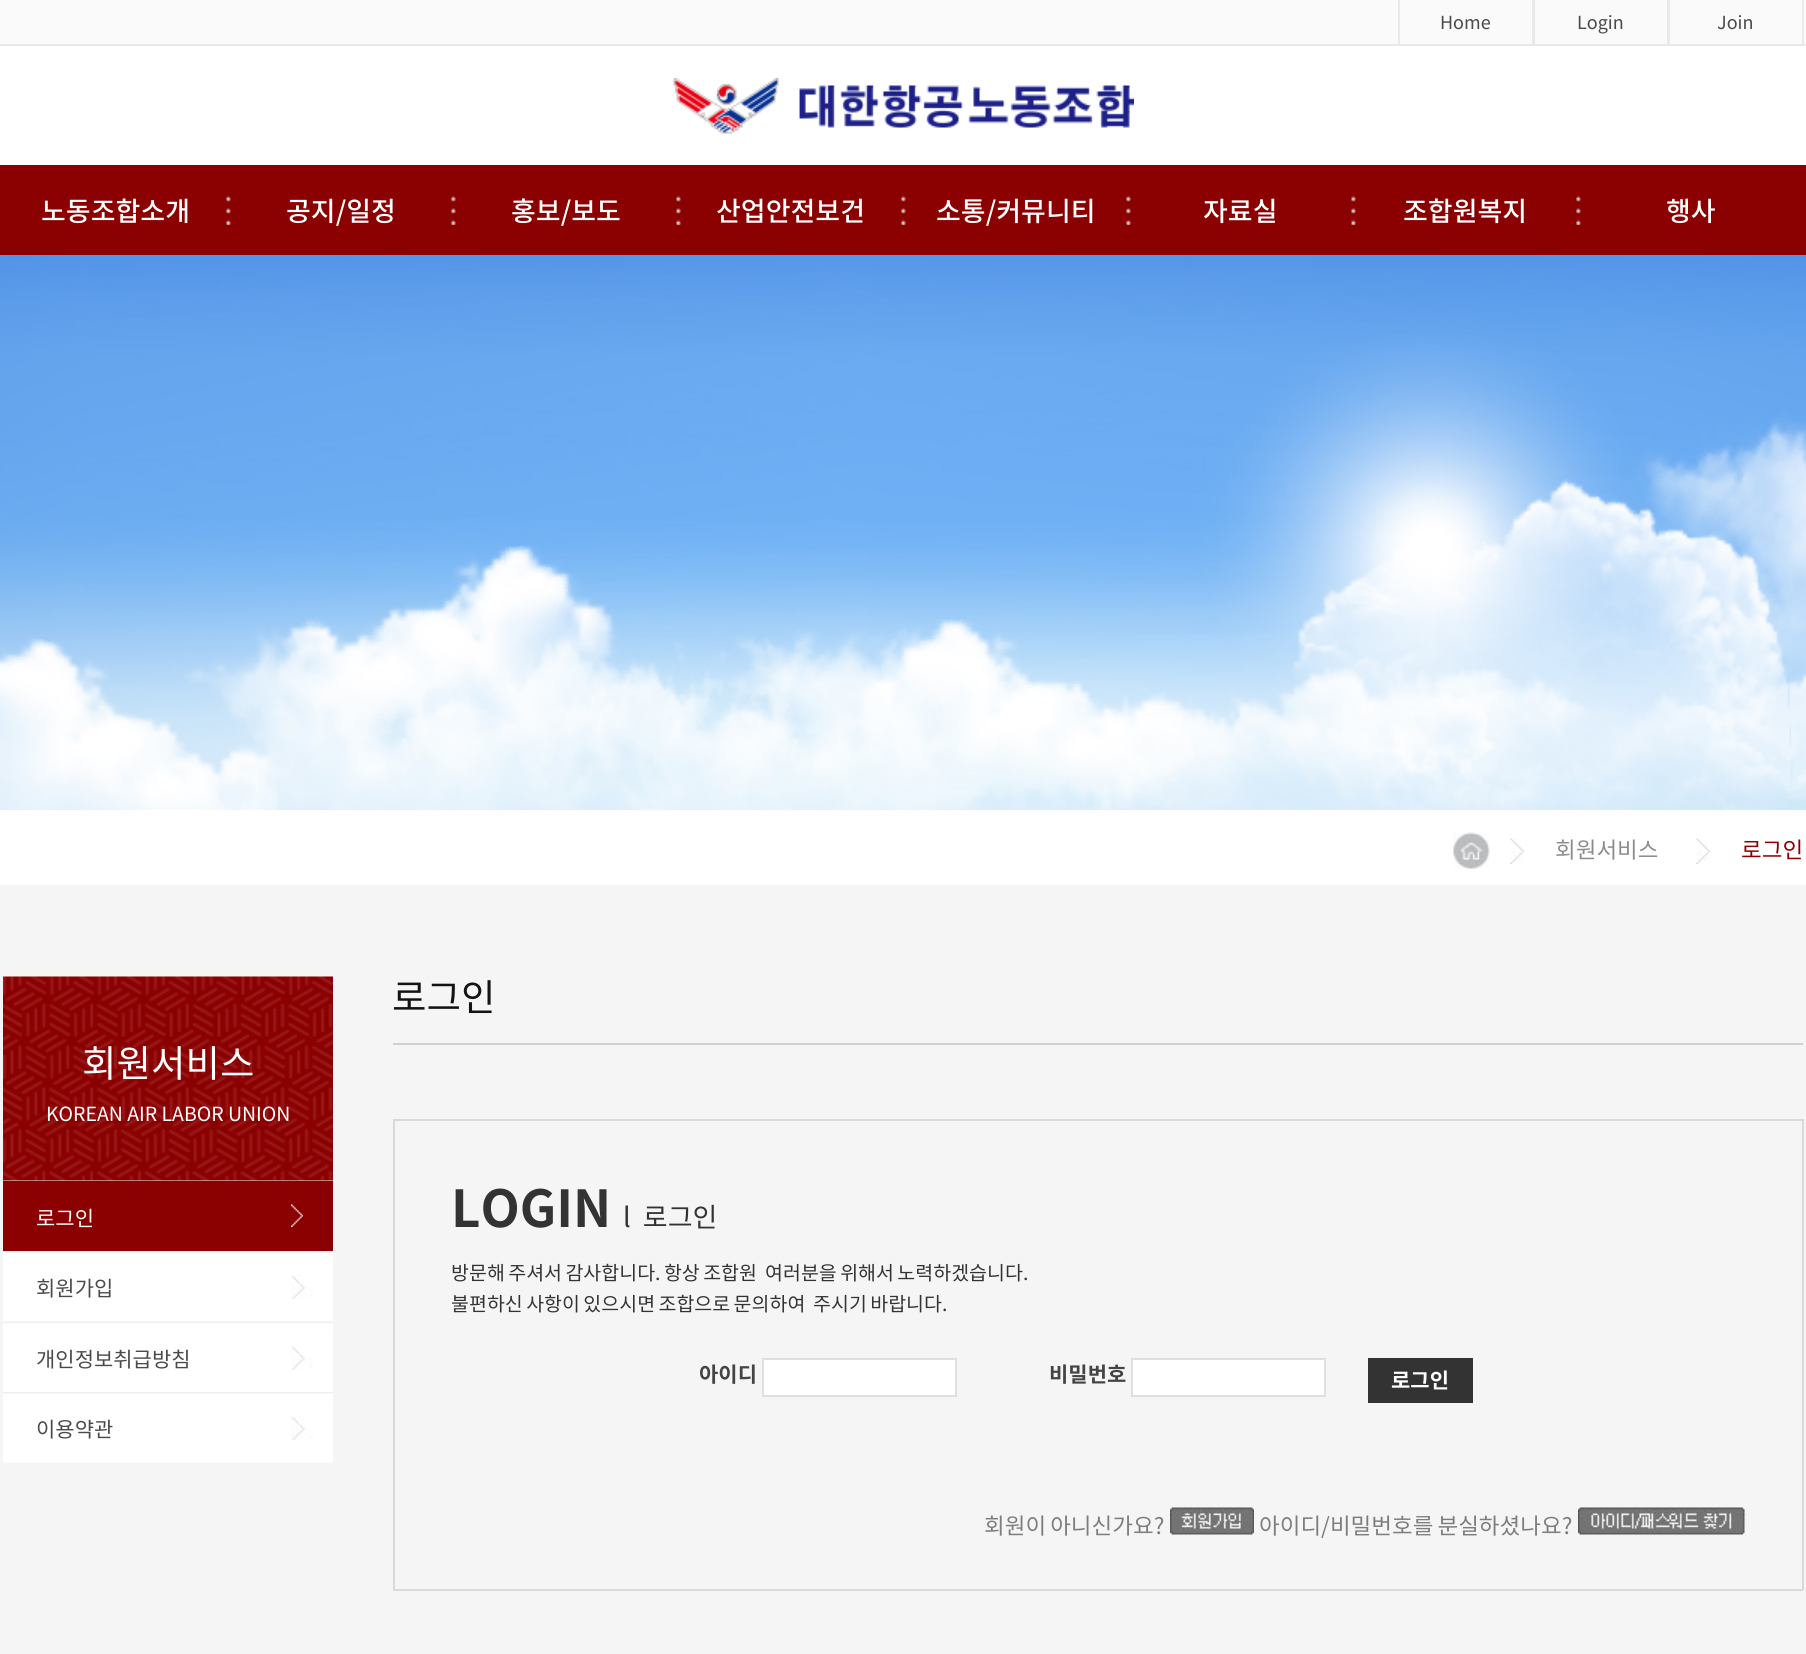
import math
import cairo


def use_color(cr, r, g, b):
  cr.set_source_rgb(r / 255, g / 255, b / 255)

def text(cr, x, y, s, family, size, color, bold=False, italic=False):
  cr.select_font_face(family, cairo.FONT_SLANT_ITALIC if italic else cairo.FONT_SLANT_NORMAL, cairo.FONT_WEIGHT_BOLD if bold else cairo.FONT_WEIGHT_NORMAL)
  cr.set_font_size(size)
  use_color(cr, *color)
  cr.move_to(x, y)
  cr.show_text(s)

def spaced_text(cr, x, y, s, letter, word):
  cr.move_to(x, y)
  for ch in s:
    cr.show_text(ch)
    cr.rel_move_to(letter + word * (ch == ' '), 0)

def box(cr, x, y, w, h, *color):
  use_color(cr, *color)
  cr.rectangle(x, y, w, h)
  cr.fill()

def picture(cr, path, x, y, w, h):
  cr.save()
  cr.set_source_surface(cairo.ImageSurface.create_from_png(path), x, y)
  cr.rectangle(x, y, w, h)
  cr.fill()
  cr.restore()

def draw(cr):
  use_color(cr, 255, 255, 255)
  cr.paint()
  box(cr, 0, 0, 1806, 44, 250, 250, 250)
  box(cr, 0, 44, 1806, 2, 233, 233, 233)
  box(cr, 1532, 0, 3, 44, 233, 233, 233)
  box(cr, 1398, 0, 2, 44, 233, 233, 233)
  box(cr, 1667, 0, 3, 44, 233, 233, 233)
  box(cr, 1802, 0, 2, 44, 233, 233, 233)
  picture(cr, "img_01.png", 673, 78, 461, 56)
  box(cr, 0, 165, 1806, 90, 139, 0, 0)
  picture(cr, "img_02.png", 226, 196, 5, 29)
  picture(cr, "img_02.png", 451, 196, 5, 29)
  picture(cr, "img_03.png", 676, 196, 5, 29)
  picture(cr, "img_02.png", 901, 196, 5, 29)
  picture(cr, "img_03.png", 1126, 196, 5, 29)
  picture(cr, "img_03.png", 1351, 196, 5, 29)
  picture(cr, "img_02.png", 1576, 196, 5, 29)
  picture(cr, "img_04.png", 0, 255, 1806, 555)
  picture(cr, "img_05.png", 1453, 832, 37, 37)
  picture(cr, "img_06.png", 1510, 838, 14, 26)
  picture(cr, "img_07.png", 1696, 838, 14, 26)
  box(cr, 0, 885, 1806, 769, 245, 245, 245)
  picture(cr, "img_08.png", 3, 976, 330, 205)
  box(cr, 3, 1181, 330, 70, 139, 0, 0)
  picture(cr, "img_09.png", 291, 1204, 12, 23)
  picture(cr, "img_10.png", 3, 1251, 330, 71)
  picture(cr, "img_11.png", 3, 1321, 330, 71)
  picture(cr, "img_10.png", 3, 1392, 330, 71)
  box(cr, 393, 1043, 1410, 2, 209, 209, 209)
  box(cr, 393, 1119, 1410, 2, 217, 217, 217)
  box(cr, 1802, 1119, 2, 471, 217, 217, 217)
  box(cr, 393, 1589, 1410, 2, 217, 217, 217)
  box(cr, 393, 1119, 2, 471, 217, 217, 217)
  use_color(cr, 255, 255, 255)
  cr.rectangle(763, 1359, 193, 37)
  cr.fill_preserve()
  use_color(cr, 223, 223, 223)
  cr.stroke()
  use_color(cr, 255, 255, 255)
  cr.rectangle(1132, 1359, 193, 37)
  cr.fill_preserve()
  use_color(cr, 223, 223, 223)
  cr.stroke()
  box(cr, 1368, 1358, 105, 45, 51, 51, 51)
  picture(cr, "img_12.png", 1170, 1507, 84, 28)
  picture(cr, "img_13.png", 1578, 1507, 167, 28)
  text(cr, 1440, 29, "Home", "Noto Sans KR", 18, (74, 74, 74))
  text(cr, 1577, 29, "Login", "Noto Sans KR", 18, (74, 74, 74))
  text(cr, 1717, 29, "Join", "Noto Sans KR", 18, (74, 74, 74))
  text(cr, 41, 221, "노동조합소개", "Noto Sans KR Medium", 27, (255, 255, 255))
  text(cr, 286, 221, "공지/일정", "Noto Sans KR Medium", 27, (255, 255, 255))
  text(cr, 511, 221, "홍보/보도", "Noto Sans KR Medium", 27, (255, 255, 255))
  text(cr, 716, 221, "산업안전보건", "Noto Sans KR Medium", 27, (255, 255, 255))
  text(cr, 936, 221, "소통/커뮤니티", "Noto Sans KR Medium", 27, (255, 255, 255))
  text(cr, 1203, 221, "자료실", "Noto Sans KR Medium", 27, (255, 255, 255))
  text(cr, 1403, 221, "조합원복지", "Noto Sans KR Medium", 27, (255, 255, 255))
  text(cr, 1666, 221, "행사", "Noto Sans KR Medium", 27, (255, 255, 255))
  text(cr, 1555, 858, "회원서비스", "Noto Sans KR", 22.5, (140, 140, 140))
  text(cr, 1741, 858, "로그인", "Noto Sans KR", 22.5, (139, 0, 0))
  text(cr, 82, 1077, "회원서비스", "Noto Sans KR", 37.5, (255, 255, 255))
  text(cr, 46, 1121, "KOREAN AIR LABOR UNION", "Noto Sans KR", 19.5, (255, 255, 255))
  text(cr, 36, 1226, "로그인", "Noto Sans KR", 21, (255, 255, 255))
  text(cr, 36, 1296, "회원가입", "Noto Sans KR", 21, (74, 74, 74))
  text(cr, 36, 1367, "개인정보취급방침", "Noto Sans KR", 21, (74, 74, 74))
  text(cr, 36, 1437, "이용약관", "Noto Sans KR", 21, (74, 74, 74))
  text(cr, 392, 1011, "로그인", "Noto Sans KR", 37.5, (19, 19, 19))
  text(cr, 451, 1227, "LOGIN", "Noto Sans KR", 51, (51, 51, 51), bold=True)
  text(cr, 623, 1227, "l  로그인", "Noto Sans KR", 27, (51, 51, 51))
  cr.set_font_size(19.5)
  spaced_text(cr, 451, 1280, "방문해 주셔서 감사합니다. 항상 조합원", 0, -1)
  spaced_text(cr, 765, 1280, "여러분을 위해서 노력하겠습니다.", 0, -1)
  spaced_text(cr, 451, 1311, "불편하신 사항이 있으시면 조합으로 문의하여", 0, -1)
  spaced_text(cr, 813, 1311, "주시기 바랍니다.", 0, -1)
  text(cr, 699, 1382, "아이디", "Noto Sans KR", 21, (68, 68, 68), bold=True)
  text(cr, 1049, 1382, "비밀번호", "Noto Sans KR", 21, (68, 68, 68), bold=True)
  text(cr, 1391, 1388, "로그인", "Noto Sans KR", 21, (255, 255, 255), bold=True)
  cr.select_font_face("Noto Sans KR")
  cr.set_font_size(22.5)
  use_color(cr, 125, 125, 125)
  spaced_text(cr, 984, 1534, "회원이 아니신가요?", 0, -1)
  spaced_text(cr, 1259, 1534, "아이디/비밀번호를 분실하셨나요?", 0, -1)


surface = cairo.ImageSurface(cairo.FORMAT_RGB24, 1806, 1654)
cr = cairo.Context(surface)
options = cairo.FontOptions()
options.set_hint_metrics(cairo.HINT_METRICS_OFF)
options.set_hint_style(cairo.HINT_STYLE_NONE)
cr.set_font_options(options)
cr.set_miter_limit(4)
draw(cr)
surface.write_to_png("out.png")
